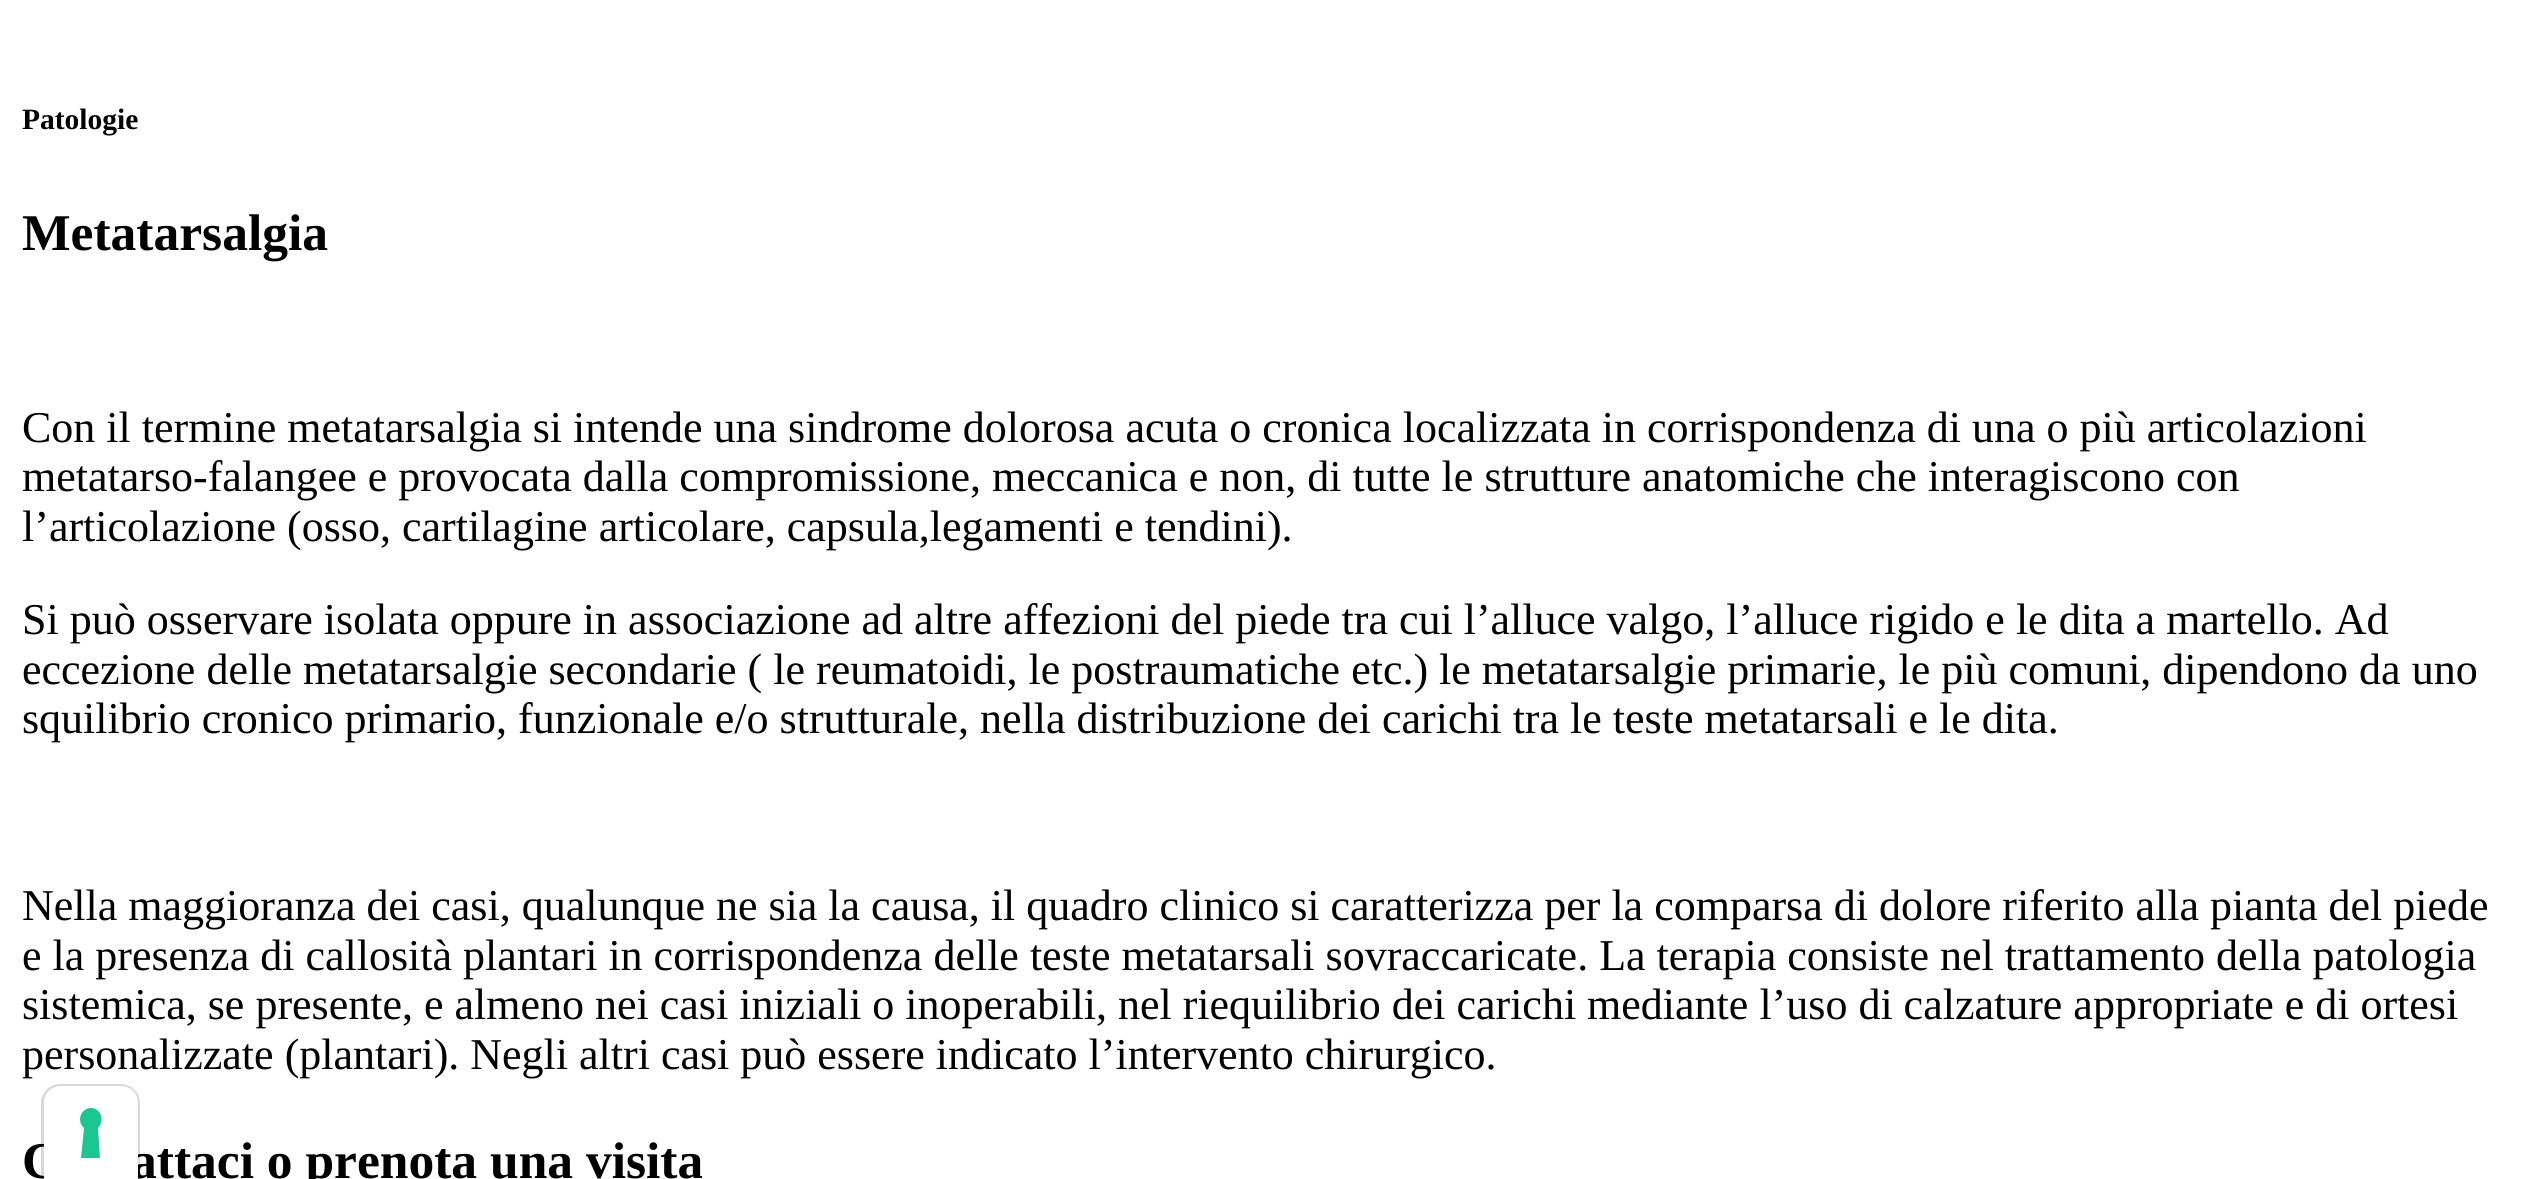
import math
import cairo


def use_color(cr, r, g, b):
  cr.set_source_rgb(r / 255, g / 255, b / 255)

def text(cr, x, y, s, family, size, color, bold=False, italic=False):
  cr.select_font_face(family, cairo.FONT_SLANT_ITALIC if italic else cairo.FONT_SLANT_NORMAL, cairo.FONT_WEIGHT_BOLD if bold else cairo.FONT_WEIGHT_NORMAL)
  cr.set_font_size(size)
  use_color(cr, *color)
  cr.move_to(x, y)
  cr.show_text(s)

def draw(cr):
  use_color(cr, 255, 255, 255)
  cr.paint()
  text(cr, 22, 129, "Patologie", "Liberation Serif", 29.5, (0, 0, 0), bold=True)
  text(cr, 22, 250, "Metatarsalgia", "Liberation Serif", 51.5, (0, 0, 0), bold=True)
  text(cr, 22, 442, "Con il termine metatarsalgia si intende una sindrome dolorosa acuta o cronica localizzata in corrispondenza di una o più articolazioni", "Liberation Serif", 44, (0, 0, 0))
  text(cr, 22, 491, "metatarso-falangee e provocata dalla compromissione, meccanica e non, di tutte le strutture anatomiche che interagiscono con", "Liberation Serif", 44, (0, 0, 0))
  text(cr, 22, 541, "l’articolazione (osso, cartilagine articolare, capsula,legamenti e tendini).", "Liberation Serif", 44, (0, 0, 0))
  text(cr, 22, 634, "Si può osservare isolata oppure in associazione ad altre affezioni del piede tra cui l’alluce valgo, l’alluce rigido e le dita a martello. Ad", "Liberation Serif", 44, (0, 0, 0))
  text(cr, 22, 684, "eccezione delle metatarsalgie secondarie ( le reumatoidi, le postraumatiche etc.) le metatarsalgie primarie, le più comuni, dipendono da uno", "Liberation Serif", 44, (0, 0, 0))
  text(cr, 22, 733, "squilibrio cronico primario, funzionale e/o strutturale, nella distribuzione dei carichi tra le teste metatarsali e le dita.", "Liberation Serif", 44, (0, 0, 0))
  text(cr, 22, 920, "Nella maggioranza dei casi, qualunque ne sia la causa, il quadro clinico si caratterizza per la comparsa di dolore riferito alla pianta del piede", "Liberation Serif", 44, (0, 0, 0))
  text(cr, 22, 970, "e la presenza di callosità plantari in corrispondenza delle teste metatarsali sovraccaricate. La terapia consiste nel trattamento della patologia", "Liberation Serif", 44, (0, 0, 0))
  text(cr, 22, 1019, "sistemica, se presente, e almeno nei casi iniziali o inoperabili, nel riequilibrio dei carichi mediante l’uso di calzature appropriate e di ortesi", "Liberation Serif", 44, (0, 0, 0))
  text(cr, 22, 1069, "personalizzate (plantari). Negli altri casi può essere indicato l’intervento chirurgico.", "Liberation Serif", 44, (0, 0, 0))
  text(cr, 22, 1178, "C", "Liberation Serif", 51.5, (0, 0, 0), bold=True)
  text(cr, 131, 1178, "attaci o prenota una visita", "Liberation Serif", 51.5, (0, 0, 0), bold=True)
  cr.new_path()
  cr.move_to(60, 1085.5)
  cr.line_to(121, 1085.5)
  cr.curve_to(130.5, 1085.5, 138.5, 1093.5, 138.5, 1103)
  cr.line_to(138.5, 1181.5)
  cr.line_to(42.5, 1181.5)
  cr.line_to(42.5, 1103)
  cr.curve_to(42.5, 1093.5, 50.5, 1085.5, 60, 1085.5)
  cr.close_path()
  cr.set_source_rgba(0, 0, 0, 0.15)
  cr.set_line_width(3)
  cr.stroke()
  use_color(cr, 255, 255, 255)
  cr.new_path()
  cr.move_to(61, 1086)
  cr.line_to(121, 1086)
  cr.curve_to(130.5, 1086, 138, 1093.5, 138, 1103)
  cr.line_to(138, 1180)
  cr.line_to(44, 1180)
  cr.line_to(44, 1103)
  cr.curve_to(44, 1093.5, 51.5, 1086, 61, 1086)
  cr.close_path()
  cr.fill()
  use_color(cr, 28, 198, 145)
  cr.set_fill_rule(cairo.FILL_RULE_EVEN_ODD)
  cr.new_path()
  cr.move_to(91, 1108)
  cr.curve_to(101, 1108, 105, 1121, 98, 1128)
  cr.line_to(100, 1158)
  cr.line_to(81, 1158)
  cr.line_to(84, 1128)
  cr.curve_to(76, 1121, 81, 1108, 91, 1108)
  cr.close_path()
  cr.fill()


surface = cairo.ImageSurface(cairo.FORMAT_RGB24, 2521, 1179)
cr = cairo.Context(surface)
options = cairo.FontOptions()
options.set_hint_metrics(cairo.HINT_METRICS_OFF)
options.set_hint_style(cairo.HINT_STYLE_NONE)
cr.set_font_options(options)
cr.set_miter_limit(4)
draw(cr)
surface.write_to_png("out.png")
